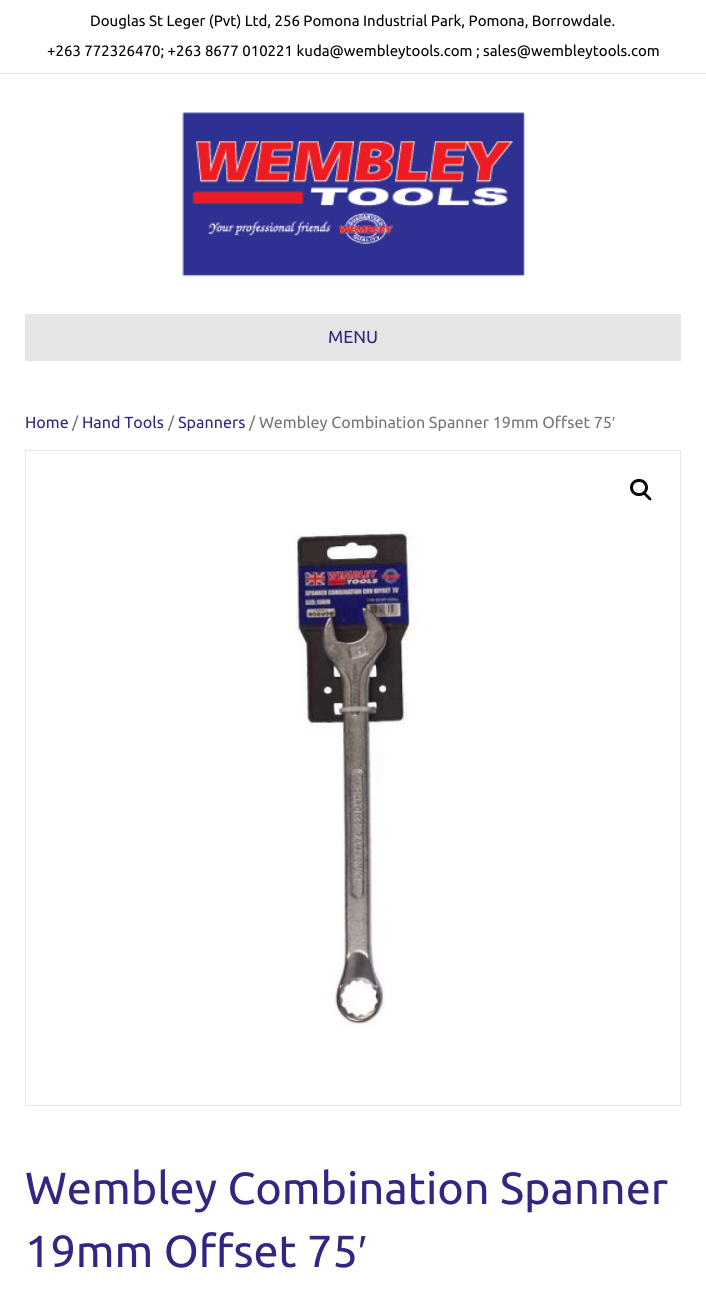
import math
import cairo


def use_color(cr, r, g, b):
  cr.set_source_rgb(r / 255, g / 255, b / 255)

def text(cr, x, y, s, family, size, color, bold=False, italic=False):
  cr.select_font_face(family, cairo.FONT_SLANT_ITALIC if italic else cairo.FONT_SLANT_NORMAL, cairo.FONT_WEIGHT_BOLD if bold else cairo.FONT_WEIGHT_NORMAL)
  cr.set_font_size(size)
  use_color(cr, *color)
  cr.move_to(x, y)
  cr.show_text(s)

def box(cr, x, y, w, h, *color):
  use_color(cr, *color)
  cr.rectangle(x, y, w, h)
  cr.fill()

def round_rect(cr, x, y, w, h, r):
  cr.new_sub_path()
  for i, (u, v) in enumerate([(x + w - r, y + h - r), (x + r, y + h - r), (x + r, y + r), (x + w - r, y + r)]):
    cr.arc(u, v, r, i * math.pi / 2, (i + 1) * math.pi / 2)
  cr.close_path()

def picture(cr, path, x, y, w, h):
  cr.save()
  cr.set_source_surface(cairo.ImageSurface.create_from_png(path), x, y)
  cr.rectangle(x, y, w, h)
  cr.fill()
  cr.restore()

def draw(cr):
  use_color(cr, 255, 255, 255)
  cr.paint()
  box(cr, 0, 73, 706, 1, 230, 230, 230)
  picture(cr, "img_01.png", 182, 112, 343, 165)
  box(cr, 25, 314, 656, 47, 230, 230, 230)
  cr.rectangle(25.5, 450.5, 655, 655)
  cr.set_line_width(1)
  cr.stroke()
  picture(cr, "img_02.png", 287, 529, 132, 498)
  round_rect(cr, 631.5, 480.5, 15, 14, 7)
  use_color(cr, 0, 0, 0)
  cr.set_line_width(3)
  cr.stroke()
  cr.new_path()
  cr.move_to(644, 493)
  cr.curve_to(645.5, 491.5, 647.5, 495, 648.5, 495.5)
  cr.curve_to(649, 496.5, 652.5, 498.5, 651, 500)
  cr.curve_to(649.5, 501.5, 647.5, 498, 646.5, 497.5)
  cr.curve_to(646, 496.5, 642.5, 494.5, 644, 493)
  cr.close_path()
  cr.fill()
  text(cr, 90, 26, "Douglas St Leger (Pvt) Ltd, 256 Pomona Industrial Park, Pomona, Borrowdale.", "Ubuntu", 15, (0, 0, 0))
  text(cr, 47, 56, "+263 772326470; +263 8677 010221 kuda@wembleytools.com ; sales@wembleytools.com", "Ubuntu", 15, (0, 0, 0))
  text(cr, 328, 343, "MENU", "Ubuntu", 17.5, (49, 39, 131))
  text(cr, 25, 428, "Home", "Ubuntu", 16.1, (49, 39, 131))
  text(cr, 72, 428, "/", "Ubuntu", 16.1, (117, 117, 117))
  text(cr, 82, 428, "Hand Tools", "Ubuntu", 16.1, (49, 39, 131))
  text(cr, 168, 428, "/", "Ubuntu", 16.1, (117, 117, 117))
  text(cr, 178, 428, "Spanners", "Ubuntu", 16.1, (49, 39, 131))
  text(cr, 249, 428, "/ Wembley Combination Spanner 19mm Offset 75", "Ubuntu", 16.1, (117, 117, 117))
  text(cr, 612, 428, "′", "Liberation Sans", 16.1, (117, 117, 117))
  text(cr, 25, 1204, "Wembley Combination Spanner", "Ubuntu", 45, (49, 39, 131))
  text(cr, 25, 1267, "19mm Offset 75", "Ubuntu", 45, (49, 39, 131))
  text(cr, 358, 1267, "′", "Liberation Sans", 45, (49, 39, 131))


surface = cairo.ImageSurface(cairo.FORMAT_RGB24, 706, 1291)
cr = cairo.Context(surface)
options = cairo.FontOptions()
options.set_hint_metrics(cairo.HINT_METRICS_OFF)
options.set_hint_style(cairo.HINT_STYLE_NONE)
cr.set_font_options(options)
cr.set_miter_limit(4)
draw(cr)
surface.write_to_png("out.png")
